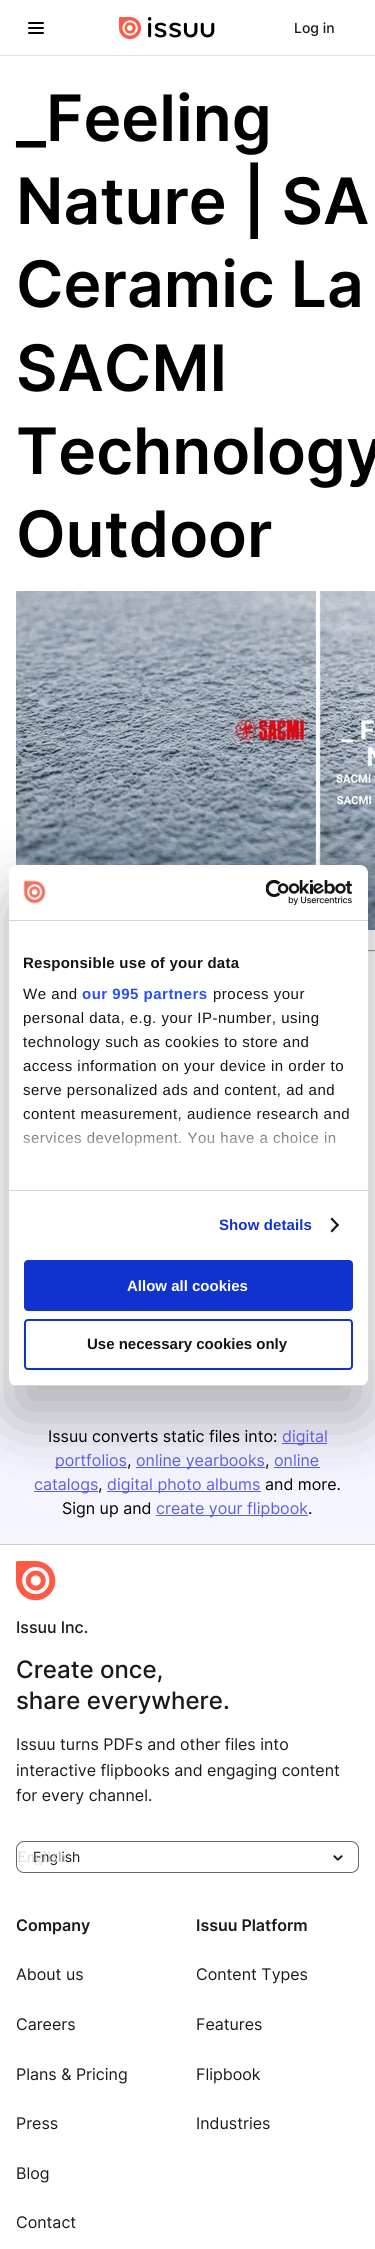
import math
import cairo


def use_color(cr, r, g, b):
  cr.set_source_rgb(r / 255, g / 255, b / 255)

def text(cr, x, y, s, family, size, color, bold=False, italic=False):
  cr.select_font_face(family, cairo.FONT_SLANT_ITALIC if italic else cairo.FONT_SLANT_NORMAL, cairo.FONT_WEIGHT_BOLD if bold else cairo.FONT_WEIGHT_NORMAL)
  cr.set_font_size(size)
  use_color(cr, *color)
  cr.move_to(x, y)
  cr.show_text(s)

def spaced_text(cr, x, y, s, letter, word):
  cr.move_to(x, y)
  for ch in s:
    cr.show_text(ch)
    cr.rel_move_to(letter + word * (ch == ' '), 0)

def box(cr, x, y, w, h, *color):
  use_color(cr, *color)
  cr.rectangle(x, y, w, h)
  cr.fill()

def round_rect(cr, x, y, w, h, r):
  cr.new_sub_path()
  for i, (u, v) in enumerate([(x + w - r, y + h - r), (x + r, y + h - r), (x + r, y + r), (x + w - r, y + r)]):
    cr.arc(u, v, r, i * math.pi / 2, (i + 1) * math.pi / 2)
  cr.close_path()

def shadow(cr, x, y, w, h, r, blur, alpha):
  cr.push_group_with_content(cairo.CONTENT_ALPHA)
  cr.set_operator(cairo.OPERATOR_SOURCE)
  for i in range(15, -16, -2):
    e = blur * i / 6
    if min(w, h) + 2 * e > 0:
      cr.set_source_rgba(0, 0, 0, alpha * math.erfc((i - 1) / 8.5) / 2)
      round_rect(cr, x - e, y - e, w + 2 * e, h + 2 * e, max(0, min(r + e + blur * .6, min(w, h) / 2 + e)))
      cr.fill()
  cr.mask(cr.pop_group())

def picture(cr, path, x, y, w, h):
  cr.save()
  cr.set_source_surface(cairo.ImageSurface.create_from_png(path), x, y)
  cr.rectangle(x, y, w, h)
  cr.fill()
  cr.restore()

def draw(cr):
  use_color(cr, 255, 255, 255)
  cr.paint()
  box(cr, 0, 55, 375, 1, 229, 229, 229)
  picture(cr, "img_01.png", 28, 22, 16, 12)
  picture(cr, "img_02.png", 119, 17, 96, 22)
  picture(cr, "img_03.png", 16, 591, 359, 339)
  box(cr, 368, 950, 7, 1, 159, 159, 159)
  box(cr, 368, 951, 7, 1, 238, 238, 238)
  gradient = cairo.LinearGradient(188, 1344, 188, 1408)
  gradient.add_color_stop_rgba(0, 1, 1, 1, 1)
  gradient.add_color_stop_rgba(1, 0.961, 0.961, 1, 1)
  cr.set_source(gradient)
  cr.rectangle(0, 1360, 375, 48)
  cr.fill()
  box(cr, 0, 1408, 375, 136, 245, 245, 255)
  box(cr, 282, 1443, 45, 1, 95, 93, 228)
  box(cr, 55, 1467, 72, 1, 95, 93, 228)
  box(cr, 136, 1467, 129, 1, 95, 93, 228)
  box(cr, 274, 1467, 46, 1, 95, 93, 228)
  box(cr, 34, 1491, 64, 1, 95, 93, 228)
  box(cr, 107, 1491, 154, 1, 95, 93, 228)
  box(cr, 156, 1515, 152, 1, 95, 93, 228)
  box(cr, 0, 1544, 375, 1, 204, 204, 204)
  picture(cr, "img_04.png", 16, 1561, 40, 40)
  round_rect(cr, 16.5, 1841.5, 342, 31, 7.5)
  use_color(cr, 102, 102, 102)
  cr.set_line_width(1)
  cr.stroke()
  picture(cr, "img_05.png", 333, 1855, 10, 6)
  use_color(cr, 0, 0, 0)
  shadow(cr, 9, 897, 359, 521, 8, 34, 0.3)
  use_color(cr, 255, 255, 255)
  round_rect(cr, 9, 865, 359, 521, 8)
  cr.fill()
  box(cr, 9, 920, 359, 1, 214, 214, 214)
  picture(cr, "img_06.png", 23, 880, 23, 24)
  picture(cr, "img_07.png", 266, 880, 87, 25)
  box(cr, 9, 1190, 359, 1, 214, 214, 214)
  use_color(cr, 20, 20, 20)
  cr.new_path()
  cr.move_to(332, 1217.5)
  cr.line_to(339, 1225)
  cr.line_to(337.5, 1226.5)
  cr.line_to(330.5, 1219)
  cr.close_path()
  cr.fill()
  cr.new_path()
  cr.move_to(337.5, 1223.5)
  cr.line_to(339, 1225)
  cr.line_to(332, 1232.5)
  cr.line_to(330.5, 1231)
  cr.close_path()
  cr.fill()
  cr.save()
  round_rect(cr, 9, 865, 359, 521, 8)
  cr.clip()
  box(cr, 9, 1385, 359, 1, 214, 214, 214)
  cr.restore()
  use_color(cr, 16, 50, 207)
  round_rect(cr, 25, 1261, 327, 49, 3)
  cr.fill_preserve()
  cr.set_line_width(2)
  cr.stroke()
  round_rect(cr, 25, 1320, 327, 49, 3)
  cr.stroke()
  text(cr, 294, 33, "Log in", "Inter Medium", 14, (26, 26, 26))
  text(cr, 16, 141, "_Feeling", "Inter SemiBold", 64, (0, 0, 0))
  text(cr, 16, 224, "Nature | SA", "Inter SemiBold", 64, (0, 0, 0))
  text(cr, 16, 307, "Ceramic La", "Inter SemiBold", 64, (0, 0, 0))
  text(cr, 16, 391, "SACMI", "Inter SemiBold", 64, (0, 0, 0))
  text(cr, 16, 474, "Technology", "Inter SemiBold", 64, (0, 0, 0))
  text(cr, 16, 557, "Outdoor", "Inter SemiBold", 64, (0, 0, 0))
  text(cr, 48, 1442, "Issuu converts static files into:", "Inter", 16, (0, 0, 0))
  text(cr, 282, 1442, "digital", "Inter", 16, (95, 93, 228))
  text(cr, 55, 1466, "portfolios", "Inter", 16, (95, 93, 228))
  text(cr, 127, 1466, ",", "Inter", 16, (0, 0, 0))
  text(cr, 136, 1466, "online yearbooks", "Inter", 16, (95, 93, 228))
  text(cr, 265, 1466, ",", "Inter", 16, (0, 0, 0))
  text(cr, 274, 1466, "online", "Inter", 16, (95, 93, 228))
  text(cr, 34, 1490, "catalogs", "Inter", 16, (95, 93, 228))
  text(cr, 98, 1490, ",", "Inter", 16, (0, 0, 0))
  text(cr, 107, 1490, "digital photo albums", "Inter", 16, (95, 93, 228))
  text(cr, 265, 1490, "and more.", "Inter", 16, (0, 0, 0))
  text(cr, 62, 1514, "Sign up and", "Inter", 16, (0, 0, 0))
  text(cr, 156, 1514, "create your flipbook", "Inter", 16, (95, 93, 228))
  text(cr, 308, 1514, ".", "Inter", 16, (0, 0, 0))
  text(cr, 16, 1633, "Issuu Inc.", "Inter Medium", 16, (26, 26, 26))
  text(cr, 16, 1678, "Create once,", "Inter Medium", 24, (26, 26, 26))
  text(cr, 16, 1709, "share everywhere.", "Inter Medium", 24, (26, 26, 26))
  text(cr, 16, 1750, "Issuu turns PDFs and other files into", "Inter", 16, (26, 26, 26))
  text(cr, 16, 1776, "interactive flipbooks and engaging content", "Inter", 16, (26, 26, 26))
  text(cr, 16, 1801, "for every channel.", "Inter", 16, (26, 26, 26))
  text(cr, 33, 1862, "English", "Inter", 14, (26, 26, 26))
  cr.save()
  cr.rectangle(17, 1848, 341, 17)
  cr.clip()
  text(cr, 17, 1862, "English", "Liberation Serif", 16, (216, 216, 216))
  cr.restore()
  text(cr, 16, 1931, "Company", "Inter SemiBold", 16, (26, 26, 26))
  text(cr, 16, 1980, "About us", "Inter", 16, (26, 26, 26))
  text(cr, 16, 2030, "Careers", "Inter", 16, (26, 26, 26))
  text(cr, 16, 2080, "Plans & Pricing", "Inter", 16, (26, 26, 26))
  text(cr, 16, 2129, "Press", "Inter", 16, (26, 26, 26))
  text(cr, 16, 2179, "Blog", "Inter", 16, (26, 26, 26))
  text(cr, 16, 2228, "Contact", "Inter", 16, (26, 26, 26))
  text(cr, 196, 1931, "Issuu Platform", "Inter SemiBold", 16, (26, 26, 26))
  text(cr, 196, 1980, "Content Types", "Inter", 16, (26, 26, 26))
  text(cr, 196, 2030, "Features", "Inter", 16, (26, 26, 26))
  text(cr, 196, 2080, "Flipbook", "Inter", 16, (26, 26, 26))
  text(cr, 196, 2129, "Industries", "Inter", 16, (26, 26, 26))
  cr.select_font_face("Liberation Sans", cairo.FONT_SLANT_NORMAL, cairo.FONT_WEIGHT_BOLD)
  cr.set_font_size(15)
  use_color(cr, 20, 20, 20)
  spaced_text(cr, 23, 968, "Responsible use of your data", 0.25, 0)
  cr.select_font_face("Liberation Sans")
  spaced_text(cr, 23, 999, "We and", 0.5, 0)
  cr.select_font_face("Liberation Sans", cairo.FONT_SLANT_NORMAL, cairo.FONT_WEIGHT_BOLD)
  use_color(cr, 42, 78, 239)
  spaced_text(cr, 82, 999, "our 995 partners", 0.5, 0)
  cr.select_font_face("Liberation Sans")
  use_color(cr, 20, 20, 20)
  spaced_text(cr, 213, 999, "process your", 0.5, 0)
  spaced_text(cr, 23, 1023, "personal data, e.g. your IP-number, using", 0.5, 0)
  spaced_text(cr, 23, 1047, "technology such as cookies to store and", 0.5, 0)
  spaced_text(cr, 23, 1071, "access information on your device in order to", 0.5, 0)
  spaced_text(cr, 23, 1095, "serve personalized ads and content, ad and", 0.5, 0)
  spaced_text(cr, 23, 1119, "content measurement, audience research and", 0.5, 0)
  spaced_text(cr, 23, 1143, "services development. You have a choice in", 0.5, 0)
  gradient = cairo.LinearGradient(182, 1190, 182, 1115)
  gradient.add_color_stop_rgba(0, 1, 1, 1, 1)
  gradient.add_color_stop_rgba(0.5, 1, 1, 1, 0.8)
  gradient.add_color_stop_rgba(1, 1, 1, 1, 0)
  cr.set_source(gradient)
  cr.rectangle(23, 1116, 326, 31)
  cr.fill()
  cr.select_font_face("Liberation Sans", cairo.FONT_SLANT_NORMAL, cairo.FONT_WEIGHT_BOLD)
  use_color(cr, 16, 50, 207)
  spaced_text(cr, 219, 1230, "Show details", 0.1, 0)
  text(cr, 127, 1291, "Allow all cookies", "Liberation Sans", 15, (255, 255, 255), bold=True)
  text(cr, 87, 1349, "Use necessary cookies only", "Liberation Sans", 15, (20, 20, 20), bold=True)


surface = cairo.ImageSurface(cairo.FORMAT_RGB24, 375, 2249)
cr = cairo.Context(surface)
options = cairo.FontOptions()
options.set_hint_metrics(cairo.HINT_METRICS_OFF)
options.set_hint_style(cairo.HINT_STYLE_NONE)
cr.set_font_options(options)
cr.set_miter_limit(4)
draw(cr)
surface.write_to_png("out.png")
